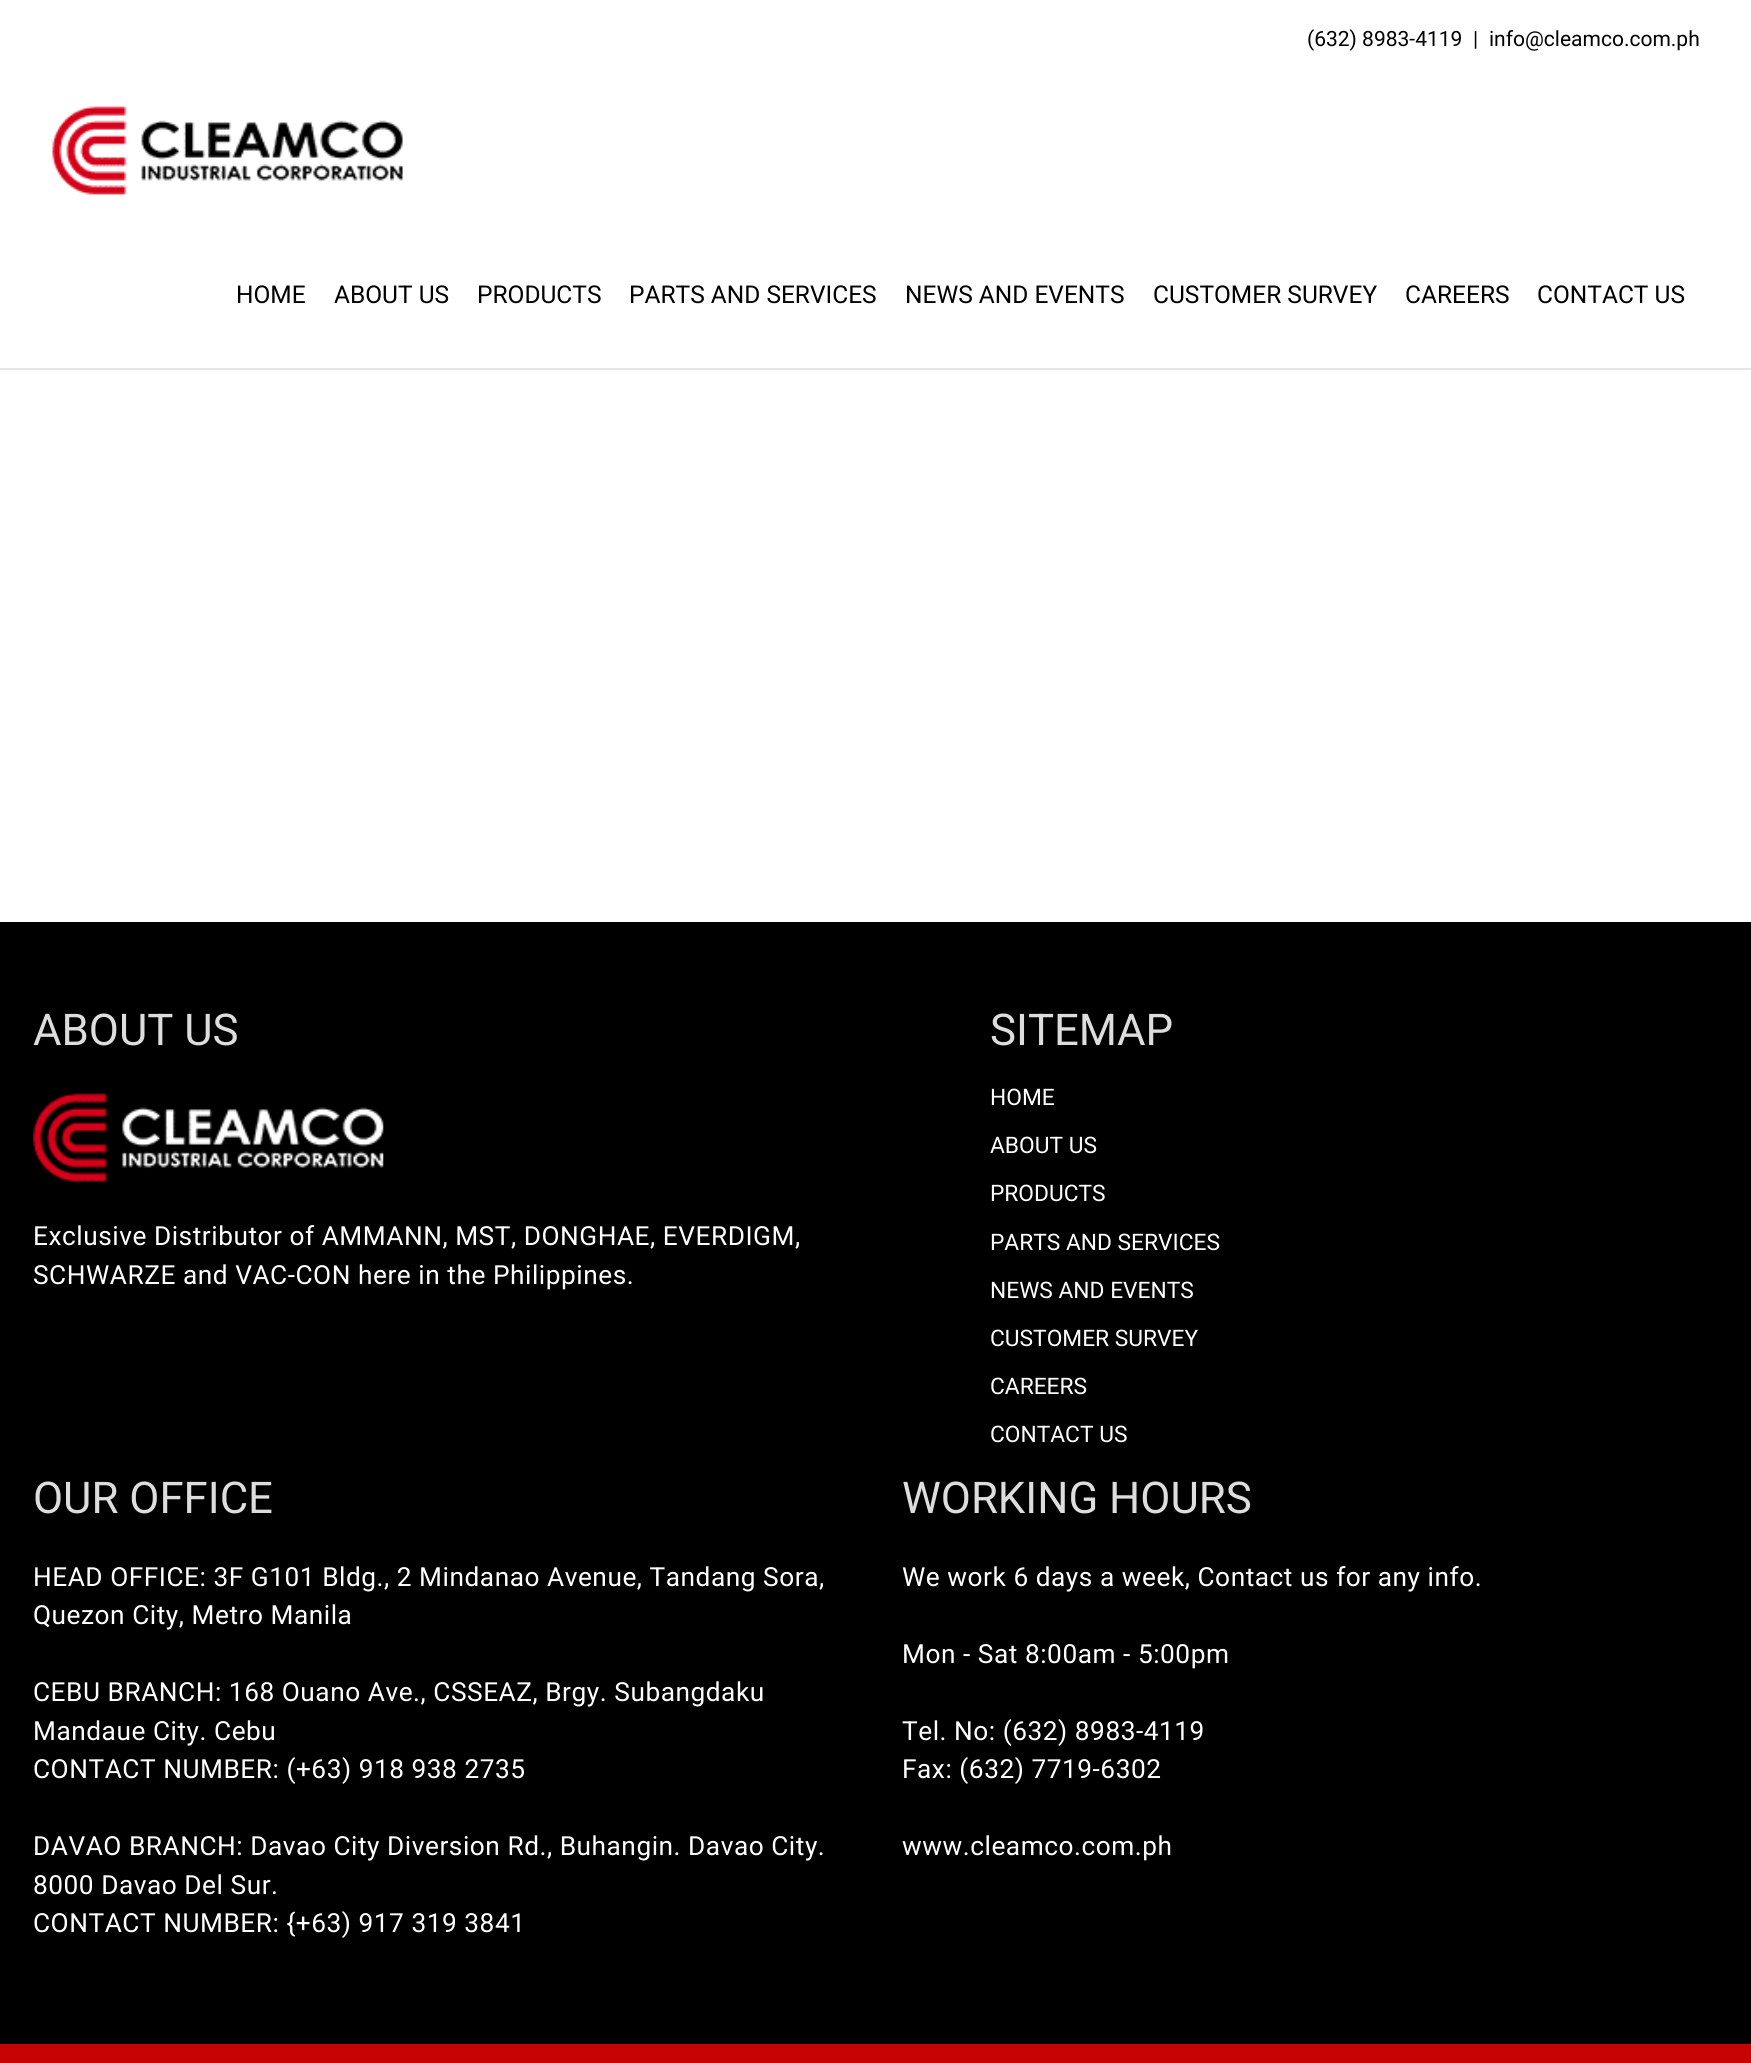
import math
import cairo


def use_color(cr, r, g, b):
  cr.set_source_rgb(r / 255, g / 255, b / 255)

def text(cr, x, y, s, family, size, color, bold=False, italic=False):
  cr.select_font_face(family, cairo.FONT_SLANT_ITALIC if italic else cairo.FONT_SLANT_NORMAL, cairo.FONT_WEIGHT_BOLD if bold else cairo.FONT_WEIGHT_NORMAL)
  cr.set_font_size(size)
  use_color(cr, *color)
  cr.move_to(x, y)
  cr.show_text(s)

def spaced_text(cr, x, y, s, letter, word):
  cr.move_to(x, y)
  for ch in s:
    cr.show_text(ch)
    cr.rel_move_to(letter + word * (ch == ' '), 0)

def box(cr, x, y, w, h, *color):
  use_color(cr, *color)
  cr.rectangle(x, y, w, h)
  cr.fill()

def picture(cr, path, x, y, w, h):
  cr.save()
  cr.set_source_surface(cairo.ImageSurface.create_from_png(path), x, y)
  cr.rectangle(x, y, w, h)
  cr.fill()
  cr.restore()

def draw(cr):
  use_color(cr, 255, 255, 255)
  cr.paint()
  box(cr, 0, 368, 1751, 2, 229, 229, 229)
  picture(cr, "img_01.png", 52, 106, 351, 89)
  box(cr, 0, 922, 1751, 1122, 0, 0, 0)
  picture(cr, "img_02.png", 33, 1093, 351, 89)
  box(cr, 0, 2044, 1751, 19, 199, 3, 3)
  text(cr, 1307, 46, "(632) 8983-4119", "Roboto", 21, (0, 0, 0))
  text(cr, 1473, 46, "|", "Roboto", 21, (0, 0, 0))
  text(cr, 1489, 46, "info@cleamco.com.ph", "Roboto", 21, (0, 0, 0))
  text(cr, 236, 303, "HOME", "Roboto", 24.5, (0, 0, 0))
  text(cr, 334, 303, "ABOUT US", "Roboto", 24.5, (0, 0, 0))
  text(cr, 477, 303, "PRODUCTS", "Roboto", 24.5, (0, 0, 0))
  text(cr, 629, 303, "PARTS AND SERVICES", "Roboto", 24.5, (0, 0, 0))
  text(cr, 905, 303, "NEWS AND EVENTS", "Roboto", 24.5, (0, 0, 0))
  text(cr, 1153, 303, "CUSTOMER SURVEY", "Roboto", 24.5, (0, 0, 0))
  text(cr, 1405, 303, "CAREERS", "Roboto", 24.5, (0, 0, 0))
  text(cr, 1537, 303, "CONTACT US", "Roboto", 24.5, (0, 0, 0))
  text(cr, 33, 1045, "ABOUT US", "Roboto", 43.75, (221, 221, 221))
  cr.set_font_size(26.25)
  use_color(cr, 255, 255, 255)
  spaced_text(cr, 33, 1245, "Exclusive Distributor of AMMANN, MST, DONGHAE, EVERDIGM,", 0.53, 0)
  spaced_text(cr, 33, 1284, "SCHWARZE and VAC-CON here in the Philippines.", 0.53, 0)
  text(cr, 990, 1045, "SITEMAP", "Roboto", 43.75, (221, 221, 221))
  text(cr, 990, 1105, "HOME", "Roboto", 22.75, (255, 255, 255))
  text(cr, 990, 1153, "ABOUT US", "Roboto", 22.75, (255, 255, 255))
  text(cr, 990, 1201, "PRODUCTS", "Roboto", 22.75, (255, 255, 255))
  text(cr, 990, 1250, "PARTS AND SERVICES", "Roboto", 22.75, (255, 255, 255))
  text(cr, 990, 1298, "NEWS AND EVENTS", "Roboto", 22.75, (255, 255, 255))
  text(cr, 990, 1346, "CUSTOMER SURVEY", "Roboto", 22.75, (255, 255, 255))
  text(cr, 990, 1394, "CAREERS", "Roboto", 22.75, (255, 255, 255))
  text(cr, 990, 1442, "CONTACT US", "Roboto", 22.75, (255, 255, 255))
  text(cr, 33, 1513, "OUR OFFICE", "Roboto", 43.75, (221, 221, 221))
  cr.set_font_size(26.25)
  use_color(cr, 255, 255, 255)
  spaced_text(cr, 33, 1586, "HEAD OFFICE: 3F G101 Bldg., 2 Mindanao Avenue, Tandang Sora,", 0.53, 0)
  spaced_text(cr, 33, 1624, "Quezon City, Metro Manila", 0.53, 0)
  spaced_text(cr, 33, 1701, "CEBU BRANCH: 168 Ouano Ave., CSSEAZ, Brgy. Subangdaku", 0.53, 0)
  spaced_text(cr, 33, 1740, "Mandaue City. Cebu", 0.53, 0)
  spaced_text(cr, 33, 1778, "CONTACT NUMBER: (+63) 918 938 2735", 0.53, 0)
  spaced_text(cr, 33, 1855, "DAVAO BRANCH: Davao City Diversion Rd., Buhangin. Davao City.", 0.53, 0)
  spaced_text(cr, 33, 1894, "8000 Davao Del Sur.", 0.53, 0)
  spaced_text(cr, 33, 1932, "CONTACT NUMBER: {+63) 917 319 3841", 0.53, 0)
  text(cr, 902, 1513, "WORKING HOURS", "Roboto", 43.75, (221, 221, 221))
  cr.set_font_size(26.25)
  use_color(cr, 255, 255, 255)
  spaced_text(cr, 902, 1586, "We work 6 days a week, Contact us for any info.", 0.53, 0)
  spaced_text(cr, 902, 1663, "Mon - Sat 8:00am - 5:00pm", 0.53, 0)
  spaced_text(cr, 902, 1740, "Tel. No: (632) 8983-4119", 0.53, 0)
  spaced_text(cr, 902, 1778, "Fax: (632) 7719-6302", 0.53, 0)
  spaced_text(cr, 902, 1855, "www.cleamco.com.ph", 0.53, 0)


surface = cairo.ImageSurface(cairo.FORMAT_RGB24, 1751, 2063)
cr = cairo.Context(surface)
options = cairo.FontOptions()
options.set_hint_metrics(cairo.HINT_METRICS_OFF)
options.set_hint_style(cairo.HINT_STYLE_NONE)
cr.set_font_options(options)
cr.set_miter_limit(4)
draw(cr)
surface.write_to_png("out.png")
